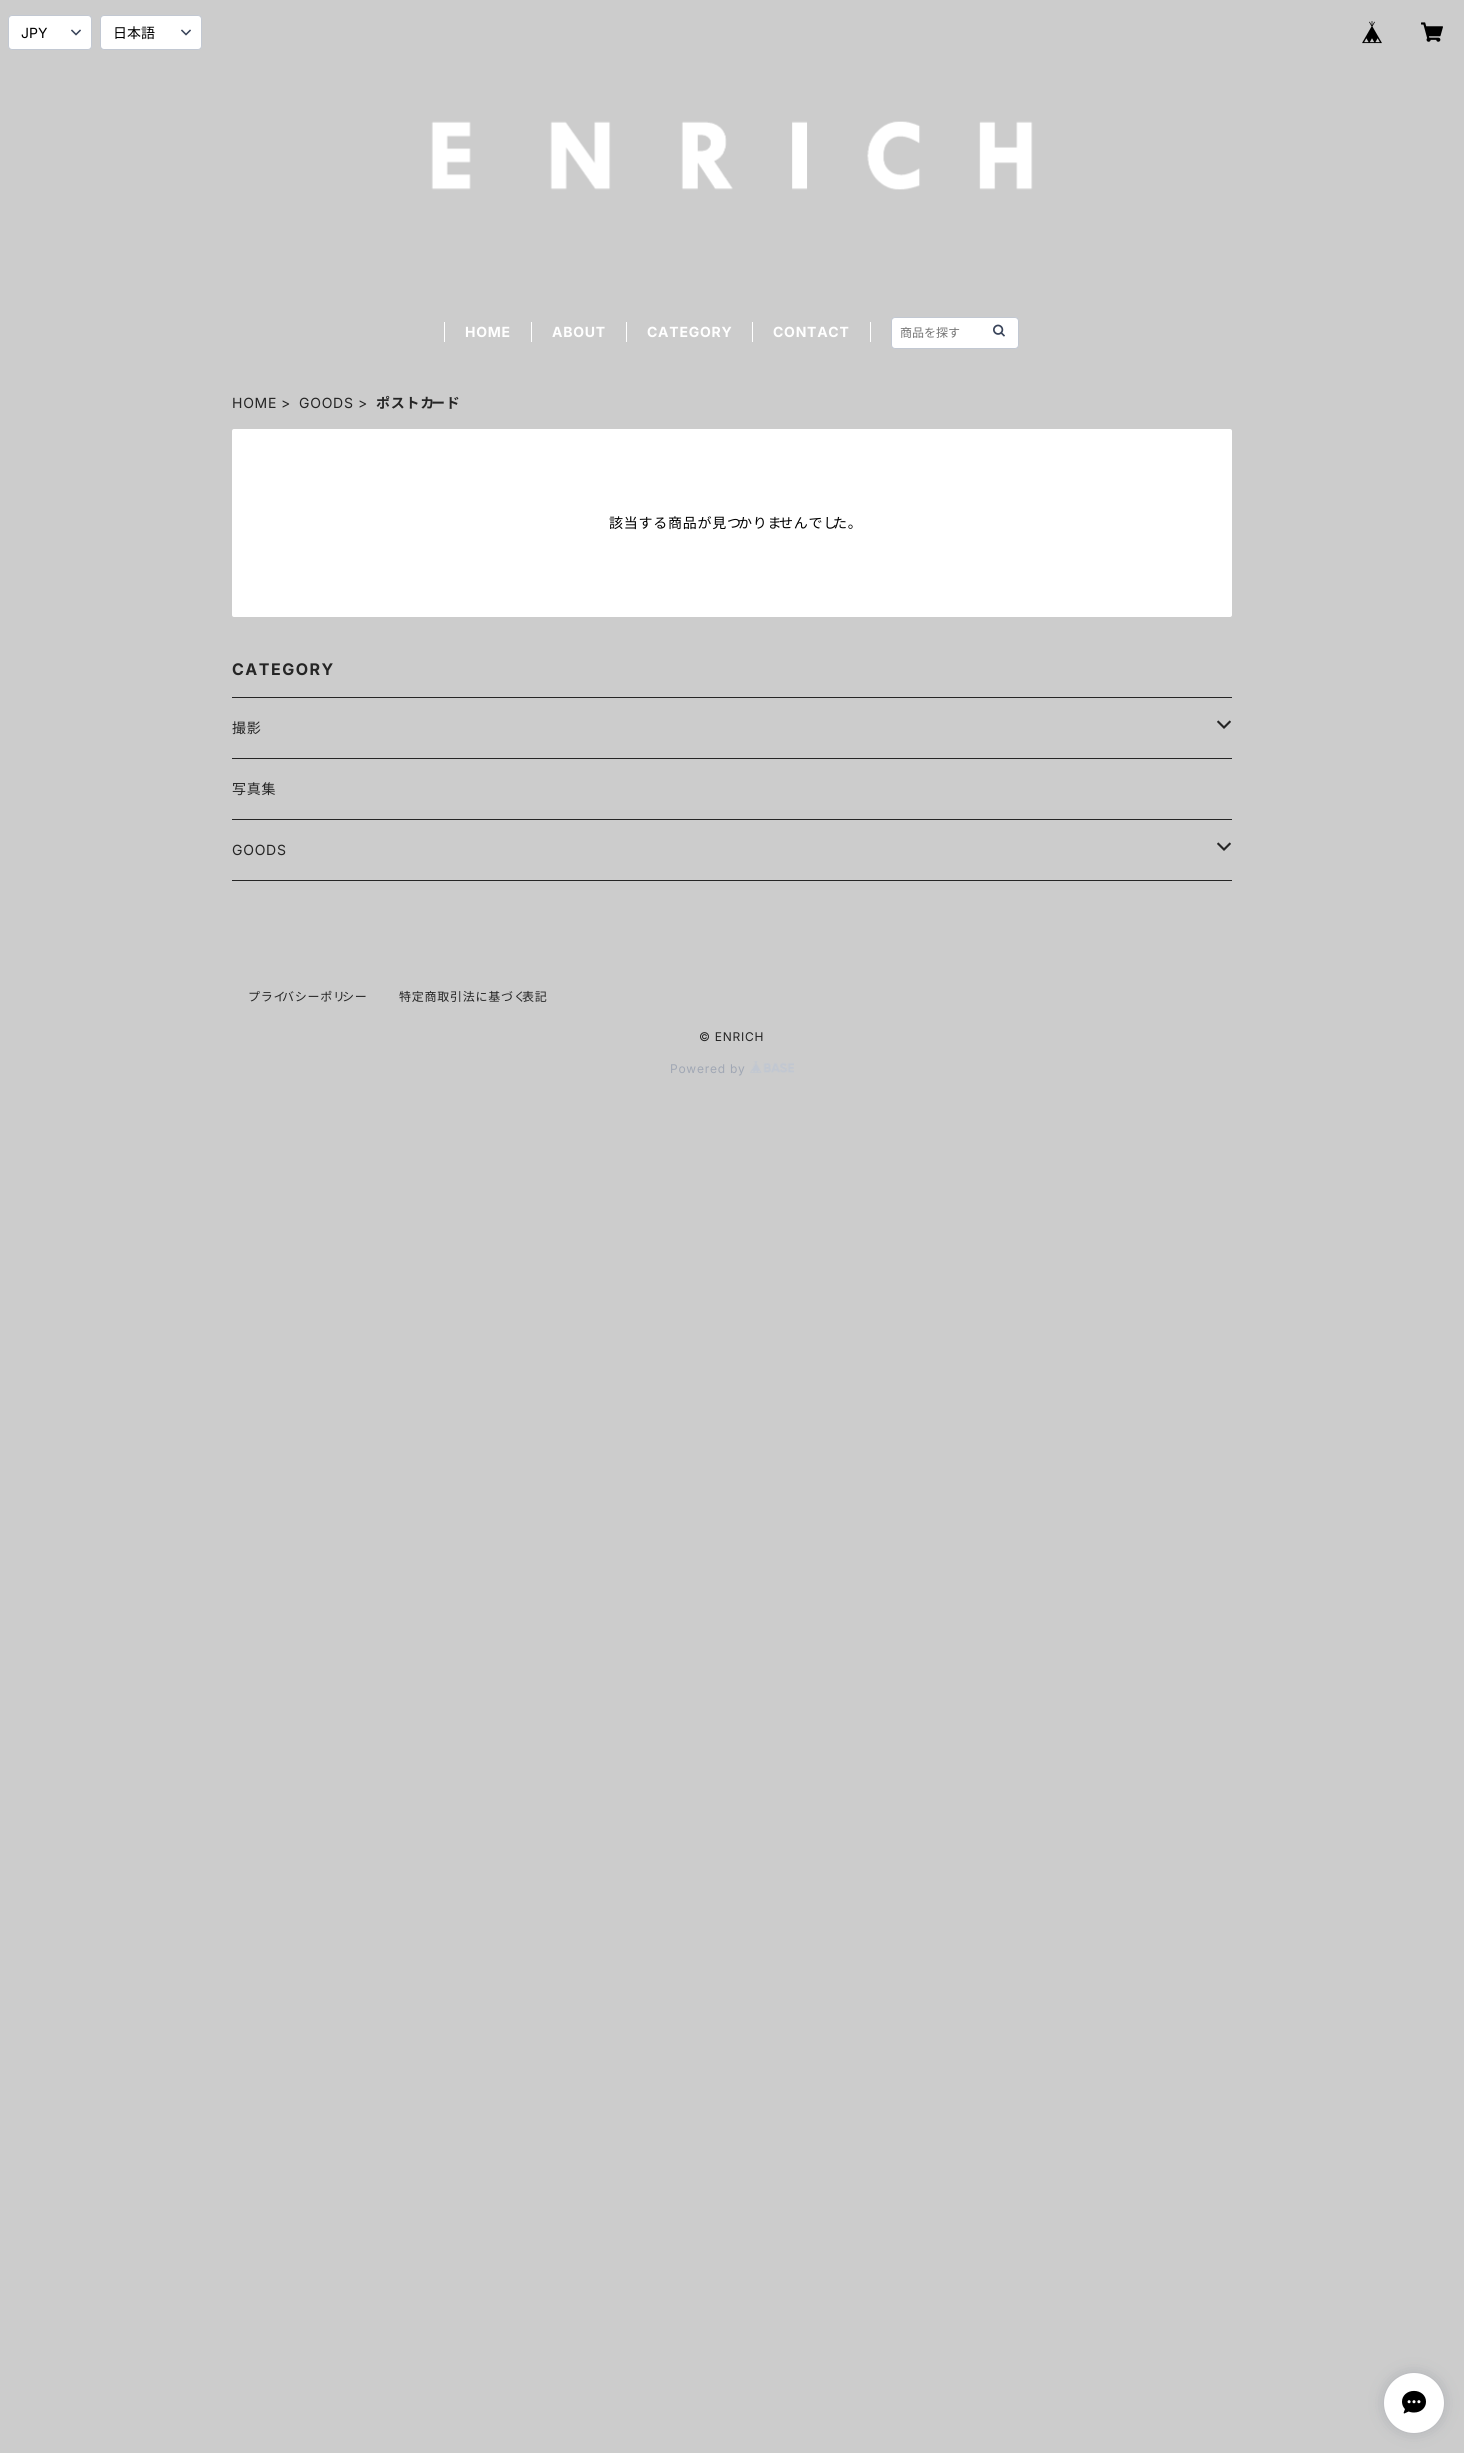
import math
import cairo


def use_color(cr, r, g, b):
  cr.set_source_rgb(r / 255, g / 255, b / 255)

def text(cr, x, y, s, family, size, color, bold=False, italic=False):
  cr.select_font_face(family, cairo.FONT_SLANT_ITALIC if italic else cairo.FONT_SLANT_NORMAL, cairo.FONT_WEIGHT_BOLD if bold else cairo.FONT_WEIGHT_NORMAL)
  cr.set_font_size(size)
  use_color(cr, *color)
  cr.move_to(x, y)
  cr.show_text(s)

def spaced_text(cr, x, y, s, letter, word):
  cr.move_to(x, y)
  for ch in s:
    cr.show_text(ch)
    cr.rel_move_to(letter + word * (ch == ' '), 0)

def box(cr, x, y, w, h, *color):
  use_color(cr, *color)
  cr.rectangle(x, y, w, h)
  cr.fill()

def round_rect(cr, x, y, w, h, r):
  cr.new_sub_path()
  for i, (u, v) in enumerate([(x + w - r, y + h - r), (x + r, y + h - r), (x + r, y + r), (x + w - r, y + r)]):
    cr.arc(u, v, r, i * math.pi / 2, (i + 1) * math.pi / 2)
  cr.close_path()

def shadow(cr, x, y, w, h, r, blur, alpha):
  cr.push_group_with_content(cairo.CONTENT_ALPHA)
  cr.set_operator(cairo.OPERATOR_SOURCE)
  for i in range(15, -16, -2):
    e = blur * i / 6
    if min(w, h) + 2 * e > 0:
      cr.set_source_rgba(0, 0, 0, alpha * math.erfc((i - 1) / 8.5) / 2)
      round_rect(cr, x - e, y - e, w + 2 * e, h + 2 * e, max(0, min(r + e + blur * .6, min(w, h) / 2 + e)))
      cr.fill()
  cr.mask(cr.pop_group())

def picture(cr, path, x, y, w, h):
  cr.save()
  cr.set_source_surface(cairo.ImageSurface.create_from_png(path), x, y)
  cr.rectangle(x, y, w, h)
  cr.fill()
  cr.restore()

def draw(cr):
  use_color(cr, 204, 204, 204)
  cr.paint()
  use_color(cr, 255, 255, 255)
  round_rect(cr, 8.5, 15.5, 83, 34, 3.5)
  cr.fill_preserve()
  use_color(cr, 194, 200, 210)
  cr.set_line_width(1)
  cr.stroke()
  picture(cr, "img_01.png", 71, 29, 10, 7)
  use_color(cr, 255, 255, 255)
  round_rect(cr, 100.5, 15.5, 101, 34, 3.5)
  cr.fill_preserve()
  use_color(cr, 194, 200, 210)
  cr.stroke()
  picture(cr, "img_01.png", 181, 29, 10, 7)
  picture(cr, "img_02.png", 1362, 21, 20, 23)
  picture(cr, "img_03.png", 1421, 22, 22, 20)
  picture(cr, "img_04.png", 431, 121, 602, 69)
  box(cr, 531, 322, 1, 20, 255, 255, 255)
  box(cr, 444, 322, 1, 20, 255, 255, 255)
  box(cr, 626, 322, 1, 20, 255, 255, 255)
  box(cr, 752, 322, 1, 20, 255, 255, 255)
  box(cr, 870, 322, 1, 20, 255, 255, 255)
  round_rect(cr, 891.5, 317.5, 127, 31, 3.5)
  cr.fill_preserve()
  use_color(cr, 194, 200, 210)
  cr.stroke()
  picture(cr, "img_05.png", 993, 324, 12, 13)
  use_color(cr, 255, 255, 255)
  round_rect(cr, 232, 429, 1000, 188, 2)
  cr.fill()
  box(cr, 232, 697, 1000, 1, 37, 37, 37)
  box(cr, 232, 880, 1000, 1, 37, 37, 37)
  picture(cr, "img_06.png", 1217, 720, 14, 9)
  box(cr, 232, 758, 1000, 1, 37, 37, 37)
  box(cr, 232, 819, 1000, 1, 37, 37, 37)
  picture(cr, "img_06.png", 1217, 842, 14, 9)
  picture(cr, "img_07.png", 750, 1061, 44, 12)
  use_color(cr, 51, 66, 88)
  shadow(cr, 1384, 2373, 60, 60, 30, 7.5, 0.2)
  use_color(cr, 255, 255, 255)
  cr.arc(1414, 2403, 30, 0, 2 * math.pi)
  cr.fill()
  picture(cr, "img_08.png", 1402, 2390, 24, 24)
  text(cr, 21, 38, "JPY", "Inter", 14, (0, 0, 0))
  text(cr, 113, 38, "日本語", "Noto Sans JP", 14, (0, 0, 0))
  cr.select_font_face("Inter", cairo.FONT_SLANT_NORMAL, cairo.FONT_WEIGHT_BOLD)
  use_color(cr, 255, 255, 255)
  spaced_text(cr, 465, 337, "HOME", 0.75, 0)
  spaced_text(cr, 552, 337, "ABOUT", 0.75, 0)
  spaced_text(cr, 647, 337, "CATEGORY", 0.75, 0)
  spaced_text(cr, 773, 337, "CONTACT", 0.75, 0)
  text(cr, 900, 337, "商品を探す", "Noto Sans JP", 12, (117, 117, 117))
  cr.select_font_face("Inter")
  cr.set_font_size(14)
  use_color(cr, 37, 37, 37)
  spaced_text(cr, 232, 408, "HOME", 0.75, 0)
  spaced_text(cr, 281, 408, ">", 0.75, 0)
  spaced_text(cr, 299, 408, "GOODS", 0.75, 0)
  spaced_text(cr, 358, 408, ">", 0.75, 0)
  cr.select_font_face("Noto Sans JP", cairo.FONT_SLANT_NORMAL, cairo.FONT_WEIGHT_BOLD)
  spaced_text(cr, 376, 408, "ポストカ", 0.75, 0)
  spaced_text(cr, 431, 408, "ード", 0.75, 0)
  cr.select_font_face("Noto Sans JP")
  use_color(cr, 0, 0, 0)
  spaced_text(cr, 609, 528, "該当する商品が見つ", 0.75, 0)
  spaced_text(cr, 738, 528, "かりま", 0.75, 0)
  spaced_text(cr, 779, 528, "せんでし", 0.75, 0)
  spaced_text(cr, 833, 528, "た。", 0.75, 0)
  cr.select_font_face("Inter", cairo.FONT_SLANT_NORMAL, cairo.FONT_WEIGHT_BOLD)
  cr.set_font_size(16)
  use_color(cr, 37, 37, 37)
  spaced_text(cr, 232, 675, "CATEGORY", 1.5, 0)
  cr.select_font_face("Noto Sans JP")
  cr.set_font_size(14)
  spaced_text(cr, 232, 733, "撮影", 0.75, 0)
  spaced_text(cr, 232, 794, "写真集", 0.75, 0)
  cr.select_font_face("Inter")
  spaced_text(cr, 232, 855, "GOODS", 0.75, 0)
  cr.select_font_face("Noto Sans JP")
  cr.set_font_size(12)
  spaced_text(cr, 248, 1001, "プライ", 0.75, 0)
  spaced_text(cr, 282, 1001, "バシーポリ", 0.75, 0)
  spaced_text(cr, 342, 1001, "シー", 0.75, 0)
  spaced_text(cr, 399, 1001, "特定商取引法に基づく", 0.75, 0)
  spaced_text(cr, 522, 1001, "表記", 0.75, 0)
  cr.select_font_face("Inter")
  spaced_text(cr, 699, 1041, "© ENRICH", 0.75, 0)
  use_color(cr, 160, 167, 180)
  spaced_text(cr, 670, 1073, "Powered by", 0.75, 0)


surface = cairo.ImageSurface(cairo.FORMAT_RGB24, 1464, 2453)
cr = cairo.Context(surface)
options = cairo.FontOptions()
options.set_hint_metrics(cairo.HINT_METRICS_OFF)
options.set_hint_style(cairo.HINT_STYLE_NONE)
cr.set_font_options(options)
cr.set_miter_limit(4)
draw(cr)
surface.write_to_png("out.png")
